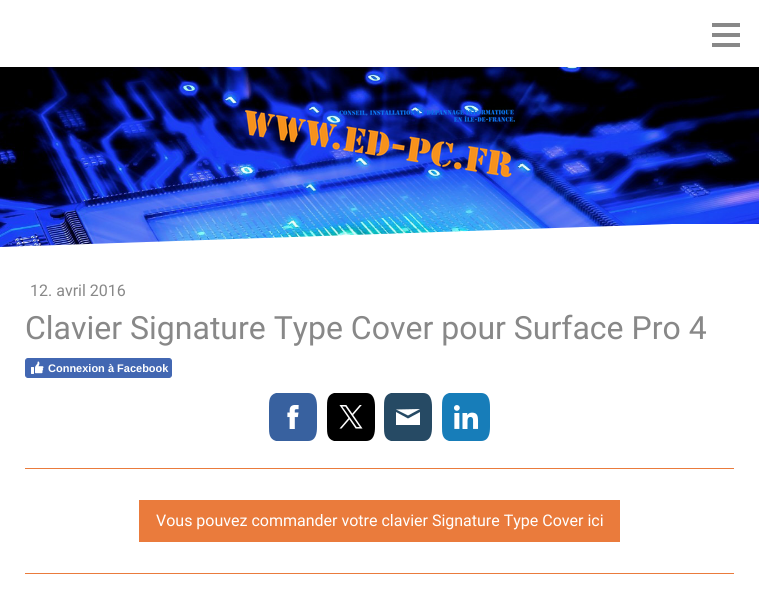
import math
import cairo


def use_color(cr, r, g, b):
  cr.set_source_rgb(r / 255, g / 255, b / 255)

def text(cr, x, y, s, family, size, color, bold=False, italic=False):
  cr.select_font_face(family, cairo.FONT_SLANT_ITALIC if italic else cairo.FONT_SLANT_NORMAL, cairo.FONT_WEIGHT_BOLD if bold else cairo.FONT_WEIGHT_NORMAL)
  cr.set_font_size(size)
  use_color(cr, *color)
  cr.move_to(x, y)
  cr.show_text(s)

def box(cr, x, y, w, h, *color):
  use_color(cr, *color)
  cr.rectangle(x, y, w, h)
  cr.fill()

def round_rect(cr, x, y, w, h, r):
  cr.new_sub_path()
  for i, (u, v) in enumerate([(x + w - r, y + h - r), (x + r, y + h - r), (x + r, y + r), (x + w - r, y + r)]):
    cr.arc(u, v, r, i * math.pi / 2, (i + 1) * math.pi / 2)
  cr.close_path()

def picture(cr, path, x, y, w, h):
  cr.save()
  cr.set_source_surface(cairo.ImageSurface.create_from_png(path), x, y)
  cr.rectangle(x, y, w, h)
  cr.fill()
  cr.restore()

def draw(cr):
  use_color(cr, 255, 255, 255)
  cr.paint()
  picture(cr, "img_01.png", 0, 67, 759, 180)
  box(cr, 712, 23, 28, 4, 136, 136, 136)
  box(cr, 712, 33, 28, 4, 136, 136, 136)
  box(cr, 712, 43, 28, 4, 136, 136, 136)
  picture(cr, "img_02.png", 245, 109, 270, 69)
  cr.save()
  cr.rectangle(0, 224, 759, 40)
  cr.clip()
  use_color(cr, 255, 255, 255)
  cr.new_path()
  cr.move_to(0, 247)
  cr.line_to(759, 221)
  cr.line_to(759, 321)
  cr.line_to(0, 347)
  cr.close_path()
  cr.fill()
  cr.restore()
  use_color(cr, 66, 103, 178)
  round_rect(cr, 25.5, 358.5, 146, 19, 2.5)
  cr.fill_preserve()
  cr.set_line_width(1)
  cr.stroke()
  picture(cr, "img_03.png", 31, 361, 13, 13)
  use_color(cr, 56, 97, 159)
  cr.new_path()
  cr.move_to(308, 441)
  cr.line_to(276, 441)
  cr.curve_to(269, 439, 269, 433, 269, 427)
  cr.line_to(269, 407)
  cr.curve_to(269, 401, 269, 395, 276, 393)
  cr.line_to(308, 393)
  cr.curve_to(316, 393, 317, 401, 317, 407)
  cr.line_to(317, 427)
  cr.curve_to(317, 433, 316, 441, 308, 441)
  cr.close_path()
  cr.fill()
  picture(cr, "img_04.png", 287, 405, 12, 24)
  use_color(cr, 0, 0, 0)
  cr.new_path()
  cr.move_to(366, 441)
  cr.line_to(334, 441)
  cr.curve_to(327, 439, 327, 433, 327, 427)
  cr.line_to(327, 407)
  cr.curve_to(327, 401, 327, 395, 334, 393)
  cr.line_to(366, 393)
  cr.curve_to(374, 393, 375, 401, 375, 407)
  cr.line_to(375, 427)
  cr.curve_to(375, 433, 374, 441, 366, 441)
  cr.close_path()
  cr.fill()
  picture(cr, "img_05.png", 339, 405, 24, 24)
  use_color(cr, 38, 74, 100)
  cr.new_path()
  cr.move_to(423, 441)
  cr.line_to(391, 441)
  cr.curve_to(384, 439, 384, 433, 384, 427)
  cr.line_to(384, 407)
  cr.curve_to(384, 401, 384, 395, 391, 393)
  cr.line_to(423, 393)
  cr.curve_to(431, 393, 432, 401, 432, 407)
  cr.line_to(432, 427)
  cr.curve_to(432, 433, 431, 441, 423, 441)
  cr.close_path()
  cr.fill()
  use_color(cr, 255, 255, 255)
  cr.new_path()
  cr.move_to(420, 425)
  cr.line_to(396, 425)
  cr.line_to(396, 412)
  cr.line_to(408, 418.5)
  cr.line_to(420, 412)
  cr.close_path()
  cr.move_to(420, 409)
  cr.line_to(396, 409.5)
  cr.line_to(408, 415.5)
  cr.close_path()
  cr.fill()
  use_color(cr, 23, 125, 185)
  cr.new_path()
  cr.move_to(481, 441)
  cr.line_to(449, 441)
  cr.curve_to(442, 439, 442, 433, 442, 427)
  cr.line_to(442, 407)
  cr.curve_to(442, 401, 442, 395, 449, 393)
  cr.line_to(481, 393)
  cr.curve_to(489, 393, 490, 401, 490, 407)
  cr.line_to(490, 427)
  cr.curve_to(490, 433, 489, 441, 481, 441)
  cr.close_path()
  cr.fill()
  picture(cr, "img_06.png", 454, 405, 25, 24)
  box(cr, 25, 468, 709, 1, 234, 123, 60)
  box(cr, 139, 500, 481, 42, 234, 123, 60)
  box(cr, 25, 573, 709, 1, 234, 123, 60)
  text(cr, 30, 296, "12. avril 2016", "Roboto", 16, (136, 136, 136))
  text(cr, 25, 339, "Clavier Signature Type Cover pour Surface Pro 4", "Roboto", 32, (136, 136, 136))
  text(cr, 48, 372, "Connexion à Facebook", "Liberation Sans", 11, (255, 255, 255), bold=True)
  text(cr, 156, 526, "Vous pouvez commander votre clavier Signature Type Cover ici", "Roboto", 16, (255, 255, 255))


surface = cairo.ImageSurface(cairo.FORMAT_RGB24, 759, 600)
cr = cairo.Context(surface)
options = cairo.FontOptions()
options.set_hint_metrics(cairo.HINT_METRICS_OFF)
options.set_hint_style(cairo.HINT_STYLE_NONE)
cr.set_font_options(options)
cr.set_miter_limit(4)
draw(cr)
surface.write_to_png("out.png")
